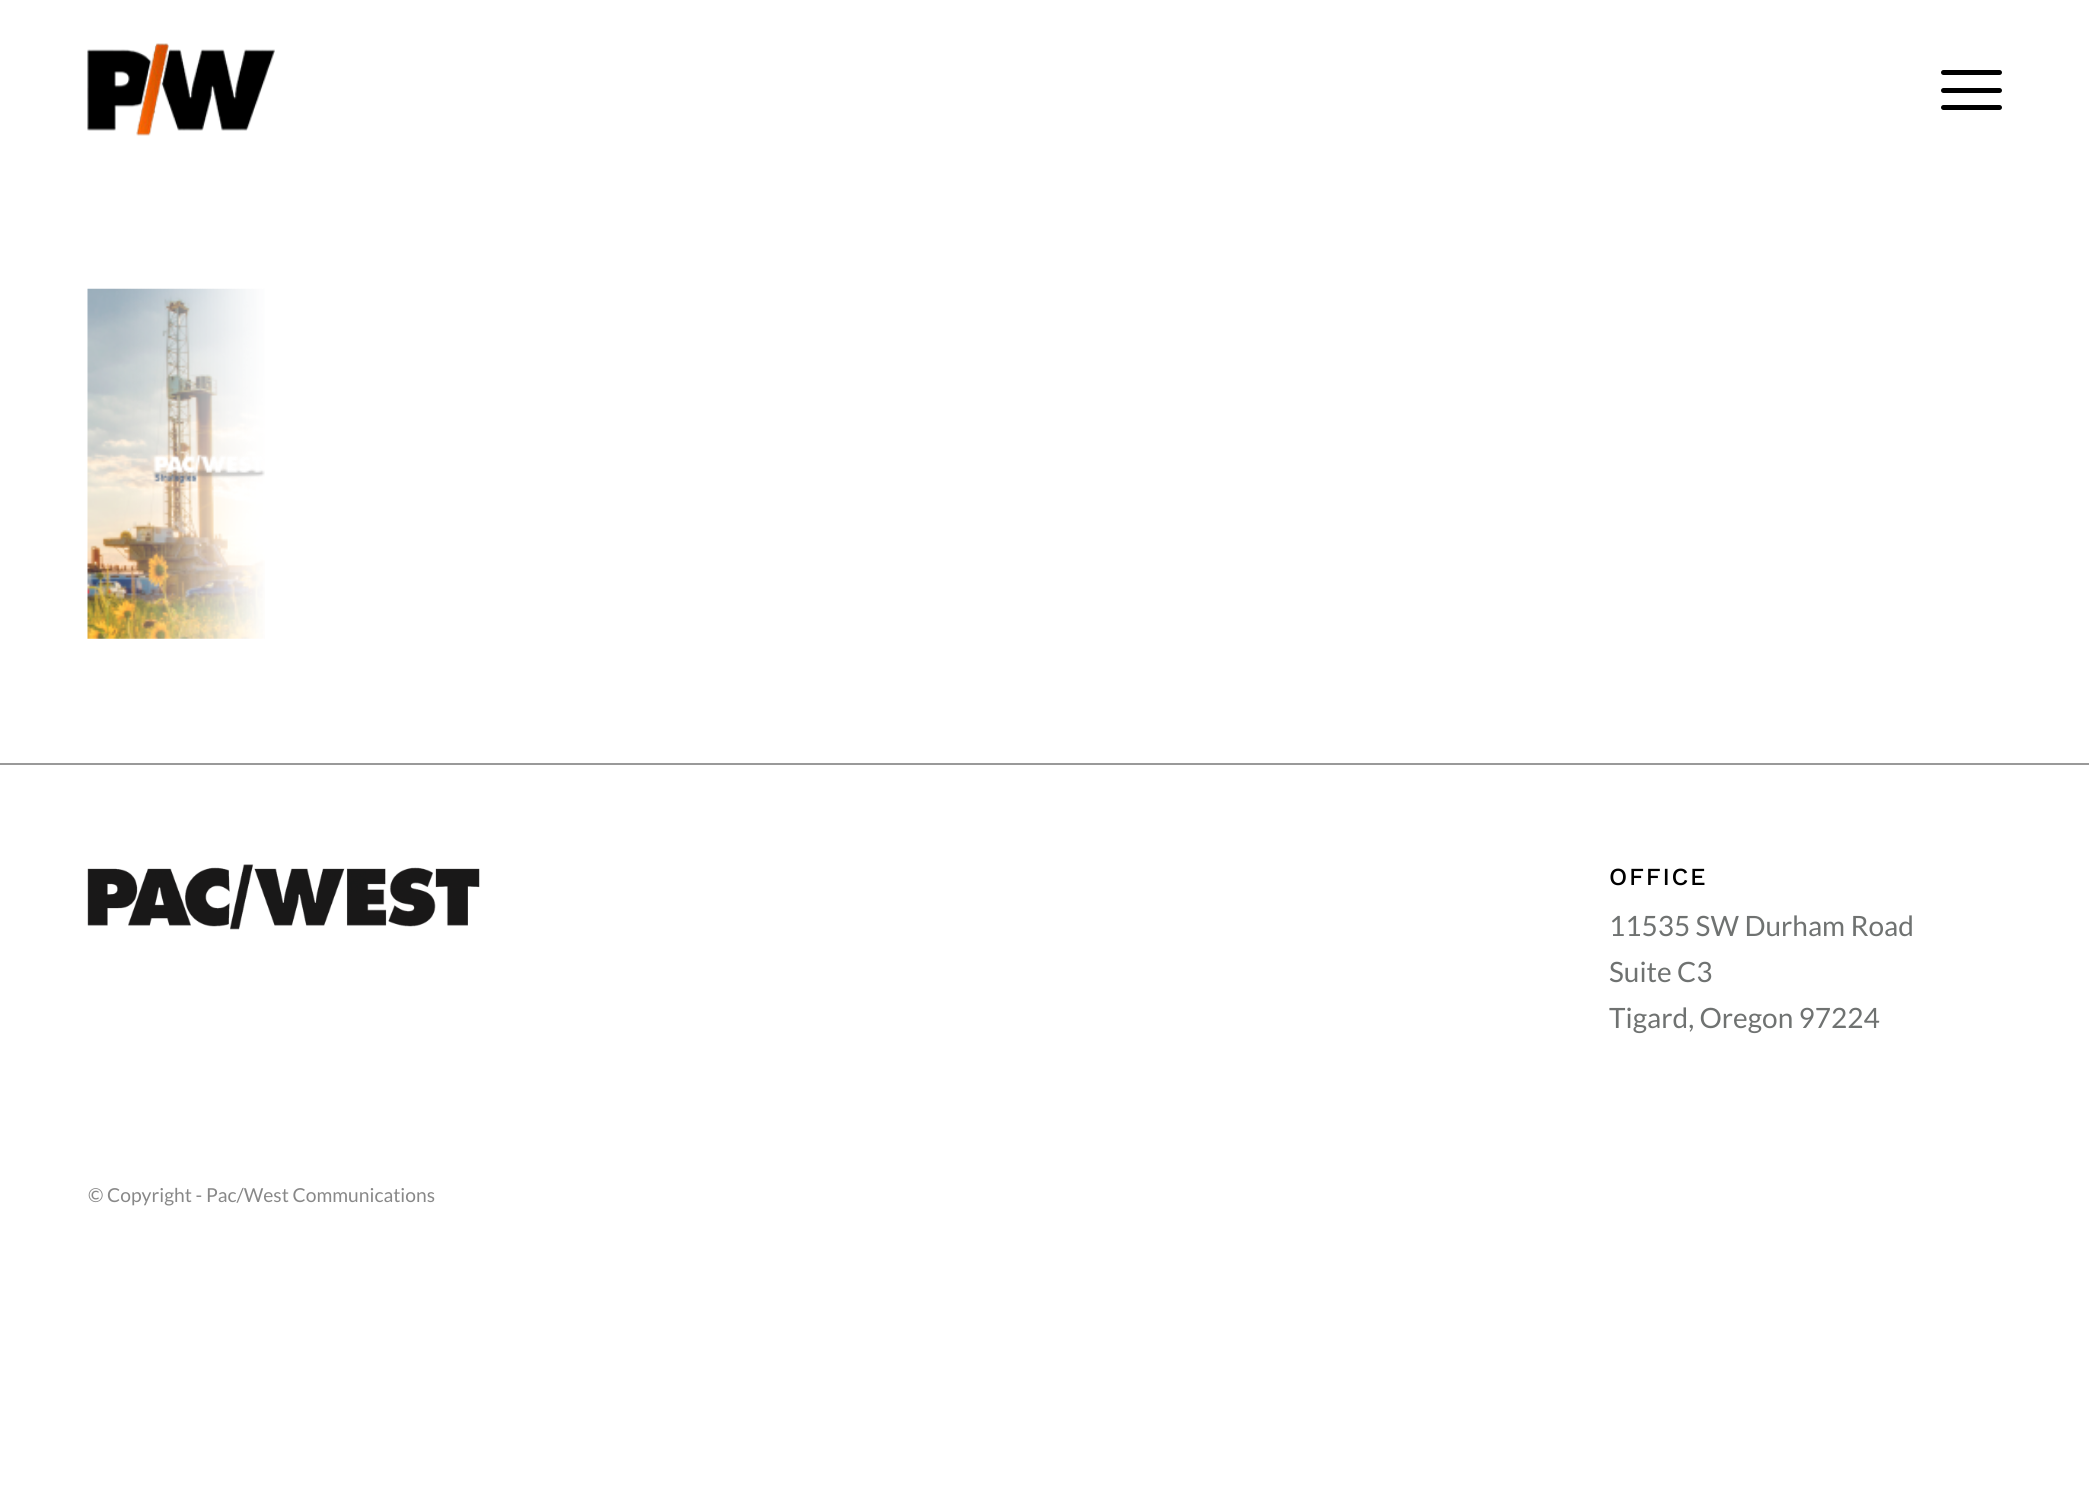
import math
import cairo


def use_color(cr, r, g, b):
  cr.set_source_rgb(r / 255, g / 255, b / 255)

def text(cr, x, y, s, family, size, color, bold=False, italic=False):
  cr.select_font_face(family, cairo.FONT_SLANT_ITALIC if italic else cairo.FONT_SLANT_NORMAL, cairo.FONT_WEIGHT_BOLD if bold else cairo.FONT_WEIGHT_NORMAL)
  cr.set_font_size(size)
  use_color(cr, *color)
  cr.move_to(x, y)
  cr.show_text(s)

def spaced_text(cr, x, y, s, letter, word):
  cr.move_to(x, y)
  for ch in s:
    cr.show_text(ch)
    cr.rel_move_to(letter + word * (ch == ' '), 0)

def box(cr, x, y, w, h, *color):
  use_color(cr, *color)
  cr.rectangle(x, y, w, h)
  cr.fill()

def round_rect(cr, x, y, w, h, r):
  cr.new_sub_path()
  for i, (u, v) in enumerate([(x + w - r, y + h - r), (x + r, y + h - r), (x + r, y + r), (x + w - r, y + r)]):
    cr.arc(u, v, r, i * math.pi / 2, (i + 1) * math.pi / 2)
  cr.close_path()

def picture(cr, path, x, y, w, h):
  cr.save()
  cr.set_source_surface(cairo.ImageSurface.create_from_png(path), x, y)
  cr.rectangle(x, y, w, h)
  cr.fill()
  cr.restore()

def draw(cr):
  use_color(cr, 255, 255, 255)
  cr.paint()
  picture(cr, "img_01.png", 87, 43, 188, 93)
  use_color(cr, 0, 0, 0)
  round_rect(cr, 1941, 88, 61, 5, 2.5)
  cr.fill()
  round_rect(cr, 1941, 70, 61, 5, 2.5)
  cr.fill()
  round_rect(cr, 1941, 105, 61, 5, 2.5)
  cr.fill()
  picture(cr, "img_02.png", 87, 288, 178, 351)
  box(cr, 0, 763, 2089, 2, 153, 153, 153)
  picture(cr, "img_03.png", 87, 864, 393, 66)
  cr.select_font_face("Work Sans Medium")
  cr.set_font_size(24.5)
  use_color(cr, 0, 0, 0)
  spaced_text(cr, 1609, 885, "OFFICE", 1.75, 0)
  text(cr, 1609, 936, "11535 SW Durham Road", "Lato", 28, (111, 114, 113))
  text(cr, 1609, 982, "Suite C3", "Lato", 28, (111, 114, 113))
  text(cr, 1609, 1028, "Tigard, Oregon 97224", "Lato", 28, (111, 114, 113))
  text(cr, 88, 1202, "© Copyright - Pac/West Communications", "Lato", 19.25, (136, 136, 136))


surface = cairo.ImageSurface(cairo.FORMAT_RGB24, 2089, 1497)
cr = cairo.Context(surface)
options = cairo.FontOptions()
options.set_hint_metrics(cairo.HINT_METRICS_OFF)
options.set_hint_style(cairo.HINT_STYLE_NONE)
cr.set_font_options(options)
cr.set_miter_limit(4)
draw(cr)
surface.write_to_png("out.png")
